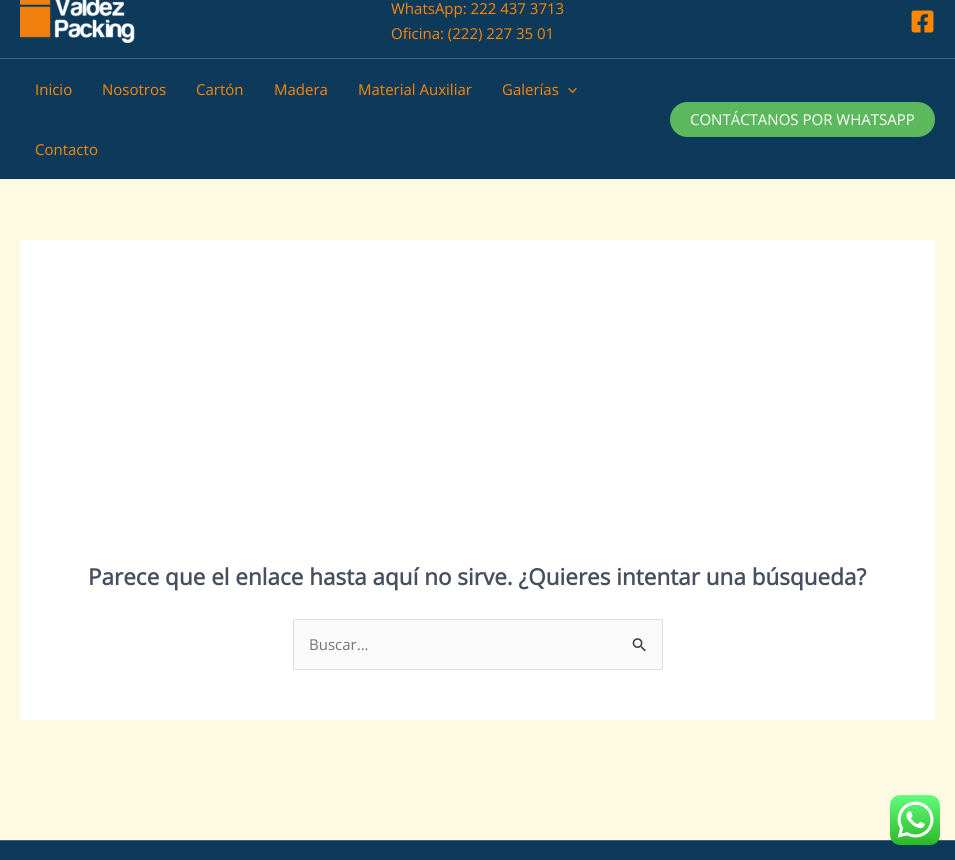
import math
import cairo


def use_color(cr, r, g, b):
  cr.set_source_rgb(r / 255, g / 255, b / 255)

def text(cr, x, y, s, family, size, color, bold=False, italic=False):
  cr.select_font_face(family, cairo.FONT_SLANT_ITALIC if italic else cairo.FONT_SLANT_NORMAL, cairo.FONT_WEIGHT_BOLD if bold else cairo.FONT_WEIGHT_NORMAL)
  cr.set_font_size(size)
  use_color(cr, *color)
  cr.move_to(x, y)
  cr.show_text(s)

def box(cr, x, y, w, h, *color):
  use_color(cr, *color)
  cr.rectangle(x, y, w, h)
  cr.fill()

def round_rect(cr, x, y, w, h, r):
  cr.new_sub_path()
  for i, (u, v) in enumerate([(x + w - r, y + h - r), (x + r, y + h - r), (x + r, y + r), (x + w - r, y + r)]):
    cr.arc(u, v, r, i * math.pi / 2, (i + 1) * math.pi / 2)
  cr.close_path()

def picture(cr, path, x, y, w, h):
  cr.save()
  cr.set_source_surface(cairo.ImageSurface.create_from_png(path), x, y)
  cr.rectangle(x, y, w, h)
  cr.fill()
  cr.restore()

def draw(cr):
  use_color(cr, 254, 249, 225)
  cr.paint()
  box(cr, 0, 0, 955, 58, 13, 58, 91)
  box(cr, 0, 58, 955, 1, 66, 100, 126)
  picture(cr, "img_01.png", 20, 0, 115, 43)
  picture(cr, "img_02.png", 911, 10, 23, 23)
  box(cr, 0, 59, 955, 120, 13, 58, 91)
  box(cr, 0, 179, 955, 1, 249, 240, 200)
  picture(cr, "img_03.png", 568, 88, 9, 5)
  use_color(cr, 92, 184, 92)
  round_rect(cr, 670, 102, 265, 35, 17.5)
  cr.fill()
  box(cr, 20, 240, 915, 480, 255, 255, 255)
  use_color(cr, 250, 250, 250)
  round_rect(cr, 293.5, 619.5, 369, 50, 1.5)
  cr.fill_preserve()
  use_color(cr, 221, 221, 221)
  cr.set_line_width(1)
  cr.stroke()
  picture(cr, "img_04.png", 632, 638, 14, 14)
  box(cr, 0, 841, 955, 19, 13, 58, 91)
  box(cr, 0, 840, 955, 1, 62, 94, 119)
  picture(cr, "img_05.png", 890, 795, 50, 50)
  text(cr, 391, 14, "WhatsApp: 222 437 3713", "Open Sans", 15, (253, 135, 0))
  text(cr, 391, 39, "Oficina: (222) 227 35 01", "Open Sans", 15, (253, 135, 0))
  text(cr, 35, 95, "Inicio", "Open Sans", 15, (253, 135, 0))
  text(cr, 102, 95, "Nosotros", "Open Sans", 15, (253, 135, 0))
  text(cr, 196, 95, "Cartón", "Open Sans", 15, (253, 135, 0))
  text(cr, 274, 95, "Madera", "Open Sans", 15, (253, 135, 0))
  text(cr, 358, 95, "Material Auxiliar", "Open Sans", 15, (253, 135, 0))
  text(cr, 502, 95, "Galerías", "Open Sans", 15, (253, 135, 0))
  text(cr, 35, 155, "Contacto", "Open Sans", 15, (253, 135, 0))
  text(cr, 690, 125, "CONTÁCTANOS POR WHATSAPP", "Open Sans", 15, (255, 255, 255))
  text(cr, 88, 585, "Parece que el enlace hasta aquí no sirve. ¿Quieres intentar una búsqueda?", "Open Sans", 22.5, (69, 79, 94), bold=True)
  text(cr, 309, 650, "Buscar...", "Open Sans", 15, (117, 117, 117))


surface = cairo.ImageSurface(cairo.FORMAT_RGB24, 955, 860)
cr = cairo.Context(surface)
options = cairo.FontOptions()
options.set_hint_metrics(cairo.HINT_METRICS_OFF)
options.set_hint_style(cairo.HINT_STYLE_NONE)
cr.set_font_options(options)
cr.set_miter_limit(4)
draw(cr)
surface.write_to_png("out.png")
